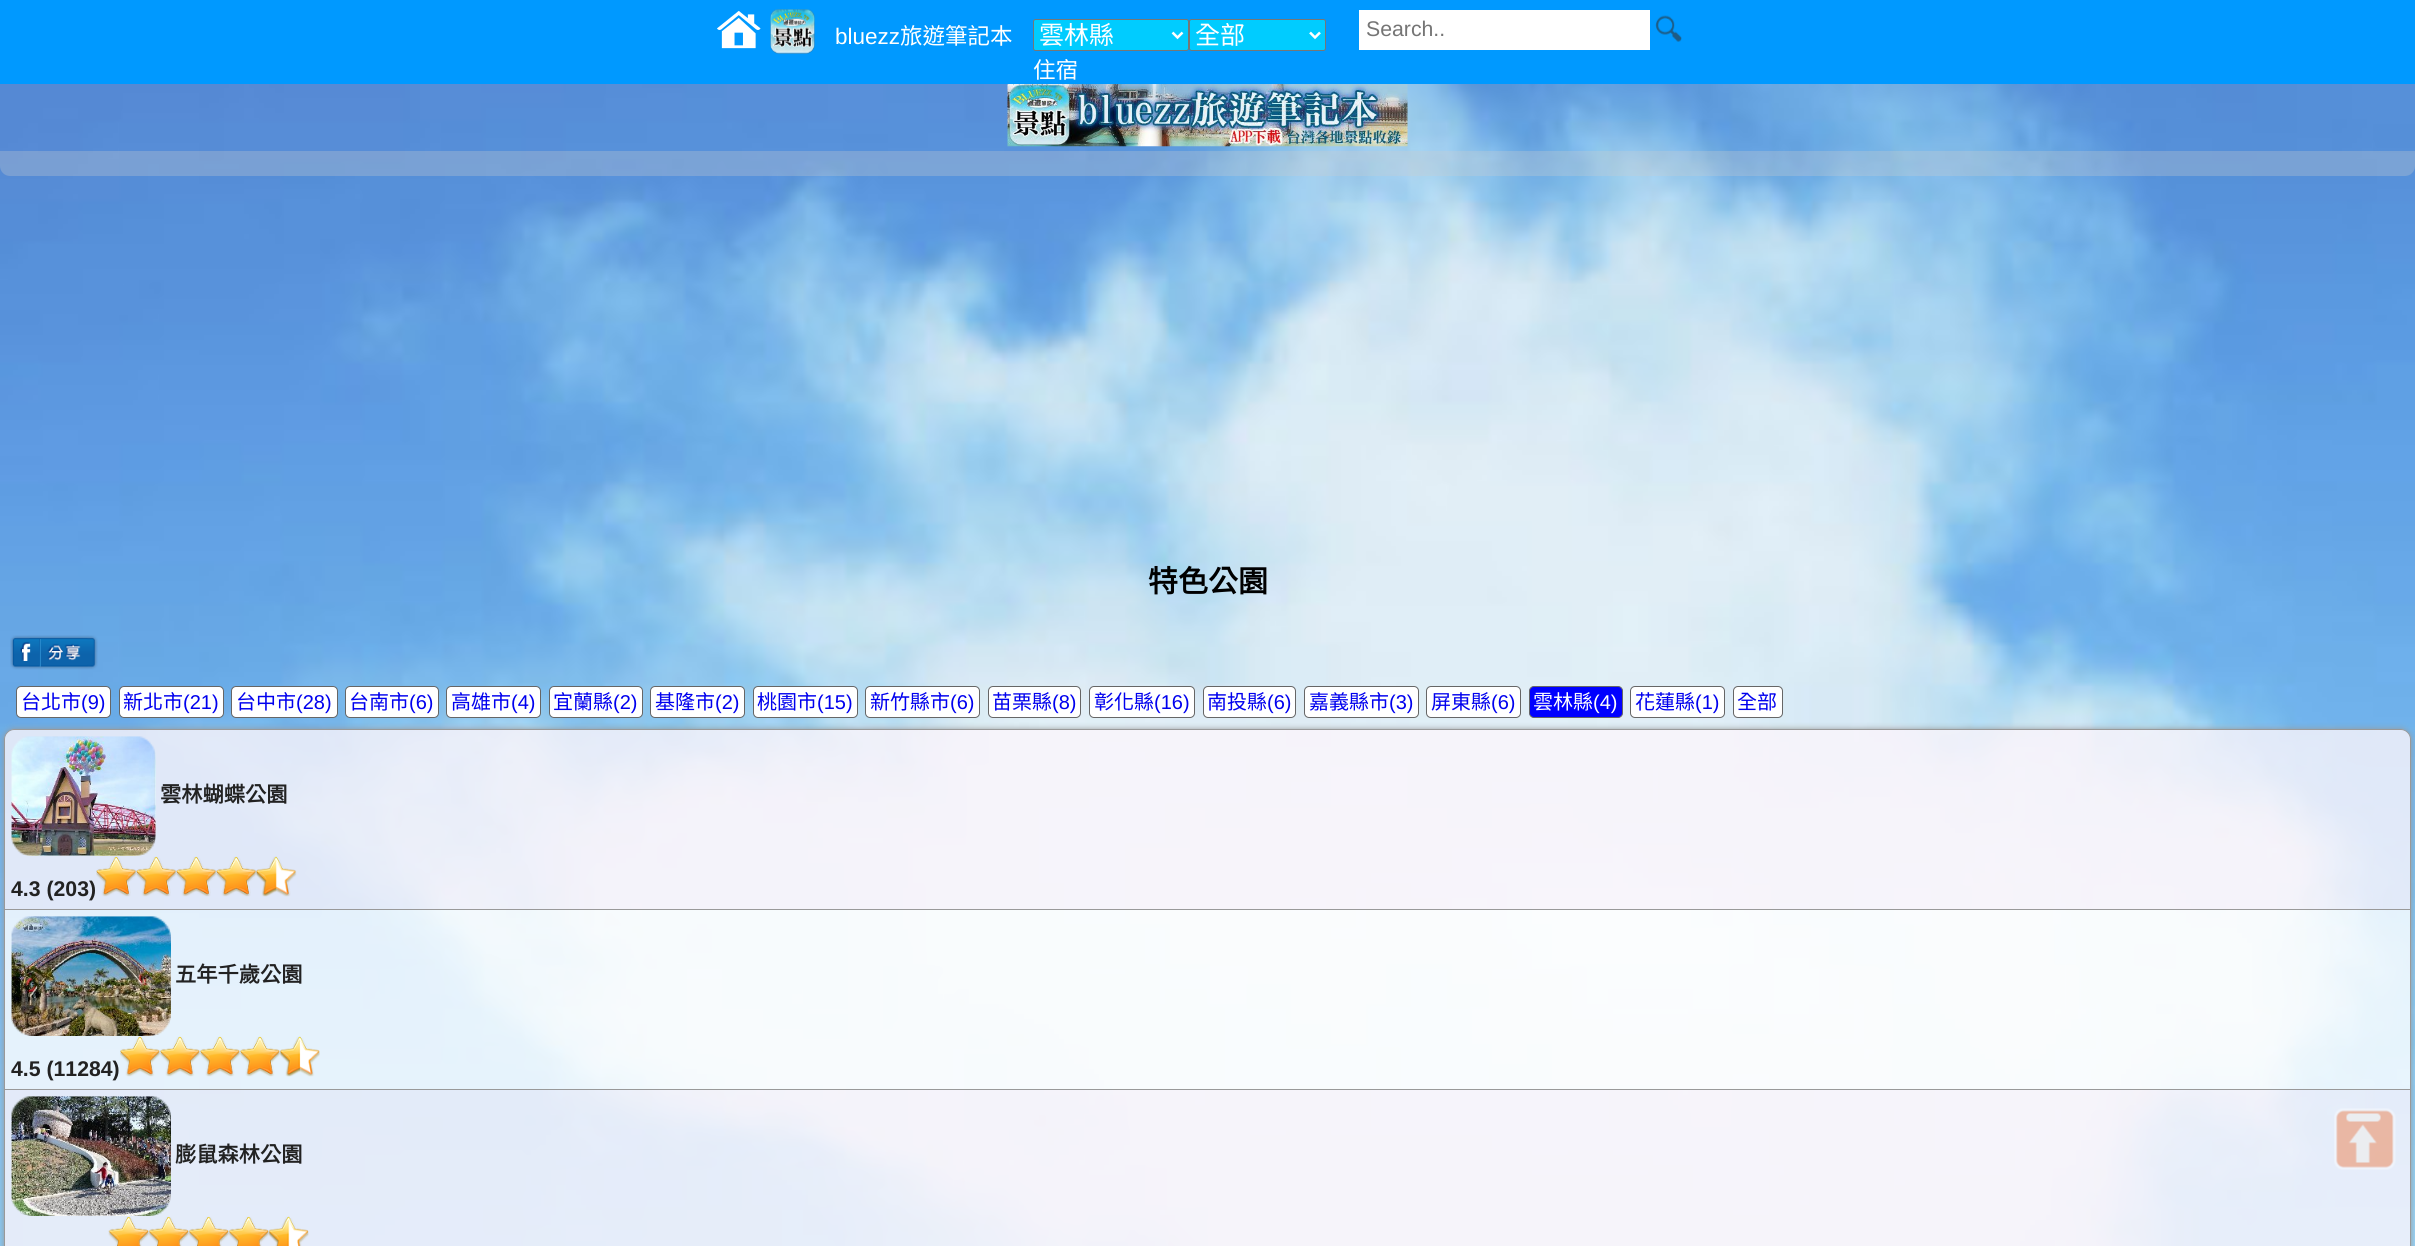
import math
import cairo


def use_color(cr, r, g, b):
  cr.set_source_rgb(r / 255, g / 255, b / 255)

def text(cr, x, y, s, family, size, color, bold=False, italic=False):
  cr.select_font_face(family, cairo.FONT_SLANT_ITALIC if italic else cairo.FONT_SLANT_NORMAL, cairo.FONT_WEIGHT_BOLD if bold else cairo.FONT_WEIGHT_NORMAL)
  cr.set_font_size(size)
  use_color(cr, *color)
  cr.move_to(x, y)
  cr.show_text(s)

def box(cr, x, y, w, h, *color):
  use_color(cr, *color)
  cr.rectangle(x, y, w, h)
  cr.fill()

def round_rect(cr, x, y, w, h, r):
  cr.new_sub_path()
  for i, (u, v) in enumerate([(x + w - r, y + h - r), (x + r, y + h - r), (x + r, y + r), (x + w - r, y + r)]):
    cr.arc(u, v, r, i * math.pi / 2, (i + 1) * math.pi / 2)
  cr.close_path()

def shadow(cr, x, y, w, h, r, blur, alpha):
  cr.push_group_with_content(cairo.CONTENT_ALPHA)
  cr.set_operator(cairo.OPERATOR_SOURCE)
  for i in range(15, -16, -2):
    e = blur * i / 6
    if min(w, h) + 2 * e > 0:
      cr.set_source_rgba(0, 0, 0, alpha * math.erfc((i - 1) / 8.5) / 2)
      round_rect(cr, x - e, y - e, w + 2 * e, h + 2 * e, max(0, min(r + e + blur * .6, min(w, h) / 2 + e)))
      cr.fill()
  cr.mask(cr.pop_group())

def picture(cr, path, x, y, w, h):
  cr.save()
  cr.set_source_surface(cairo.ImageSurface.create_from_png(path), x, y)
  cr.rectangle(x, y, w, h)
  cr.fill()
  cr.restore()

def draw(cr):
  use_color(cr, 255, 255, 255)
  cr.paint()
  picture(cr, "img_01.png", 0, 84, 2415, 1162)
  box(cr, 0, 0, 2415, 84, 0, 153, 255)
  picture(cr, "img_02.png", 717, 10, 44, 39)
  picture(cr, "img_03.png", 770, 9, 45, 45)
  use_color(cr, 0, 204, 255)
  round_rect(cr, 1033.5, 19.5, 155, 31, 2)
  cr.fill_preserve()
  use_color(cr, 118, 118, 118)
  cr.set_line_width(1)
  cr.stroke()
  cr.new_path()
  cr.move_to(1172.5, 32.5)
  cr.line_to(1177.5, 37.5)
  cr.line_to(1182.5, 32.5)
  use_color(cr, 255, 255, 255)
  cr.set_line_width(2.5)
  cr.stroke()
  use_color(cr, 0, 204, 255)
  round_rect(cr, 1189.5, 19.5, 136, 31, 2)
  cr.fill_preserve()
  use_color(cr, 118, 118, 118)
  cr.set_line_width(1)
  cr.stroke()
  cr.new_path()
  cr.move_to(1310, 32.5)
  cr.line_to(1315, 37.5)
  cr.line_to(1320, 32.5)
  use_color(cr, 255, 255, 255)
  cr.set_line_width(2.5)
  cr.stroke()
  box(cr, 1359, 10, 291, 40, 255, 255, 255)
  picture(cr, "img_04.png", 1655, 15, 27, 27)
  picture(cr, "img_05.png", 1007, 84, 401, 63)
  cr.set_source_rgba(0.8, 0.8, 0.8, 0.3)
  cr.new_path()
  cr.move_to(0, 151)
  cr.line_to(2415, 151)
  cr.line_to(2415, 166)
  cr.curve_to(2415, 171.5, 2410.5, 176, 2405, 176)
  cr.line_to(10, 176)
  cr.curve_to(4.5, 176, 0, 171.5, 0, 166)
  cr.close_path()
  cr.fill()
  picture(cr, "img_06.png", 10, 635, 88, 35)
  use_color(cr, 255, 255, 255)
  round_rect(cr, 16.5, 686.5, 94, 31, 4.5)
  cr.fill_preserve()
  use_color(cr, 102, 102, 102)
  cr.set_line_width(1)
  cr.stroke()
  use_color(cr, 255, 255, 255)
  round_rect(cr, 119.5, 686.5, 104, 31, 4.5)
  cr.fill_preserve()
  use_color(cr, 102, 102, 102)
  cr.stroke()
  use_color(cr, 255, 255, 255)
  round_rect(cr, 231.5, 686.5, 106, 31, 4.5)
  cr.fill_preserve()
  use_color(cr, 102, 102, 102)
  cr.stroke()
  use_color(cr, 255, 255, 255)
  round_rect(cr, 345.5, 686.5, 93, 31, 4.5)
  cr.fill_preserve()
  use_color(cr, 102, 102, 102)
  cr.stroke()
  use_color(cr, 255, 255, 255)
  round_rect(cr, 446.5, 686.5, 94, 31, 4.5)
  cr.fill_preserve()
  use_color(cr, 102, 102, 102)
  cr.stroke()
  use_color(cr, 255, 255, 255)
  round_rect(cr, 549.5, 686.5, 93, 31, 4.5)
  cr.fill_preserve()
  use_color(cr, 102, 102, 102)
  cr.stroke()
  use_color(cr, 255, 255, 255)
  round_rect(cr, 650.5, 686.5, 94, 31, 4.5)
  cr.fill_preserve()
  use_color(cr, 102, 102, 102)
  cr.stroke()
  use_color(cr, 255, 255, 255)
  round_rect(cr, 753.5, 686.5, 104, 31, 4.5)
  cr.fill_preserve()
  use_color(cr, 102, 102, 102)
  cr.stroke()
  use_color(cr, 255, 255, 255)
  round_rect(cr, 865.5, 686.5, 114, 31, 4.5)
  cr.fill_preserve()
  use_color(cr, 102, 102, 102)
  cr.stroke()
  use_color(cr, 255, 255, 255)
  round_rect(cr, 988.5, 686.5, 92, 31, 4.5)
  cr.fill_preserve()
  use_color(cr, 102, 102, 102)
  cr.stroke()
  use_color(cr, 255, 255, 255)
  round_rect(cr, 1089.5, 686.5, 105, 31, 4.5)
  cr.fill_preserve()
  use_color(cr, 102, 102, 102)
  cr.stroke()
  use_color(cr, 255, 255, 255)
  round_rect(cr, 1203.5, 686.5, 92, 31, 4.5)
  cr.fill_preserve()
  use_color(cr, 102, 102, 102)
  cr.stroke()
  use_color(cr, 255, 255, 255)
  round_rect(cr, 1304.5, 686.5, 114, 31, 4.5)
  cr.fill_preserve()
  use_color(cr, 102, 102, 102)
  cr.stroke()
  use_color(cr, 255, 255, 255)
  round_rect(cr, 1426.5, 686.5, 94, 31, 4.5)
  cr.fill_preserve()
  use_color(cr, 102, 102, 102)
  cr.stroke()
  use_color(cr, 0, 0, 255)
  round_rect(cr, 1529.5, 686.5, 93, 31, 4.5)
  cr.fill_preserve()
  use_color(cr, 102, 102, 102)
  cr.stroke()
  use_color(cr, 255, 255, 255)
  round_rect(cr, 1630.5, 686.5, 94, 31, 4.5)
  cr.fill_preserve()
  use_color(cr, 102, 102, 102)
  cr.stroke()
  use_color(cr, 255, 255, 255)
  round_rect(cr, 1733.5, 686.5, 49, 31, 4.5)
  cr.fill_preserve()
  use_color(cr, 102, 102, 102)
  cr.stroke()
  cr.save()
  cr.set_fill_rule(cairo.FILL_RULE_EVEN_ODD)
  cr.new_path()
  cr.move_to(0, 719)
  cr.line_to(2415, 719)
  cr.line_to(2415, 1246)
  cr.line_to(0, 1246)
  cr.close_path()
  cr.move_to(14, 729)
  cr.line_to(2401, 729)
  cr.curve_to(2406.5, 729, 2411, 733.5, 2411, 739)
  cr.line_to(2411, 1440)
  cr.curve_to(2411, 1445.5, 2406.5, 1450, 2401, 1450)
  cr.line_to(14, 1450)
  cr.curve_to(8.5, 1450, 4, 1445.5, 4, 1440)
  cr.line_to(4, 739)
  cr.curve_to(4, 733.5, 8.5, 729, 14, 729)
  cr.close_path()
  cr.clip()
  use_color(cr, 153, 153, 153)
  shadow(cr, 4, 729, 2407, 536, 10, 3, 1)
  cr.restore()
  cr.set_source_rgba(0.984, 0.961, 0.984, 0.8)
  cr.new_path()
  cr.move_to(14, 729.5)
  cr.line_to(2401, 729.5)
  cr.curve_to(2406, 729.5, 2410.5, 734, 2410.5, 739)
  cr.line_to(2410.5, 909.5)
  cr.line_to(4.5, 909.5)
  cr.line_to(4.5, 739)
  cr.curve_to(4.5, 734, 9, 729.5, 14, 729.5)
  cr.close_path()
  cr.fill_preserve()
  use_color(cr, 153, 153, 153)
  cr.stroke()
  picture(cr, "img_07.png", 11, 736, 145, 120)
  picture(cr, "img_08.png", 96, 856, 41, 41)
  picture(cr, "img_09.png", 136, 856, 41, 41)
  picture(cr, "img_10.png", 176, 856, 41, 41)
  picture(cr, "img_11.png", 216, 856, 41, 41)
  picture(cr, "img_12.png", 256, 856, 41, 41)
  cr.set_source_rgba(1, 1, 1, 0.8)
  cr.rectangle(4.5, 909.5, 2406, 180)
  cr.fill_preserve()
  use_color(cr, 153, 153, 153)
  cr.stroke()
  picture(cr, "img_13.png", 11, 916, 160, 120)
  picture(cr, "img_14.png", 120, 1036, 40, 41)
  picture(cr, "img_15.png", 160, 1036, 40, 41)
  picture(cr, "img_16.png", 200, 1036, 40, 41)
  picture(cr, "img_17.png", 240, 1036, 40, 41)
  picture(cr, "img_18.png", 280, 1036, 40, 41)
  cr.set_source_rgba(0.984, 0.961, 0.984, 0.8)
  cr.rectangle(4.5, 1089.5, 2406, 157)
  cr.fill_preserve()
  use_color(cr, 153, 153, 153)
  cr.stroke()
  picture(cr, "img_19.png", 11, 1096, 160, 120)
  picture(cr, "img_20.png", 108, 1216, 41, 30)
  picture(cr, "img_21.png", 148, 1216, 41, 30)
  picture(cr, "img_22.png", 188, 1216, 41, 30)
  picture(cr, "img_23.png", 228, 1216, 41, 30)
  picture(cr, "img_24.png", 268, 1216, 41, 30)
  picture(cr, "img_25.png", 2334, 1108, 62, 62)
  text(cr, 835, 44, "bluezz", "Liberation Sans", 22.5, (255, 255, 255))
  text(cr, 900, 44, "旅遊筆記本", "Noto Sans CJK TC", 22.5, (255, 255, 255))
  text(cr, 1039, 44, "雲林縣", "Noto Sans CJK TC", 25, (255, 255, 255))
  text(cr, 1195, 44, "全部", "Noto Sans CJK TC", 25, (255, 255, 255))
  text(cr, 1366, 36, "Search..", "Liberation Sans", 21.25, (117, 117, 117))
  text(cr, 1033, 78, "住宿", "Noto Sans CJK TC", 22.5, (255, 255, 255))
  text(cr, 1148, 592, "特色公園", "Noto Sans CJK TC", 30, (0, 0, 0), bold=True)
  text(cr, 21, 709, "台北市", "Noto Sans CJK TC", 20, (0, 0, 238))
  text(cr, 81, 709, "(9)", "Liberation Sans", 20, (0, 0, 238))
  text(cr, 123, 709, "新北市", "Noto Sans CJK TC", 20, (0, 0, 238))
  text(cr, 183, 709, "(21)", "Liberation Sans", 20, (0, 0, 238))
  text(cr, 236, 709, "台中市", "Noto Sans CJK TC", 20, (0, 0, 238))
  text(cr, 296, 709, "(28)", "Liberation Sans", 20, (0, 0, 238))
  text(cr, 349, 709, "台南市", "Noto Sans CJK TC", 20, (0, 0, 238))
  text(cr, 409, 709, "(6)", "Liberation Sans", 20, (0, 0, 238))
  text(cr, 451, 709, "高雄市", "Noto Sans CJK TC", 20, (0, 0, 238))
  text(cr, 511, 709, "(4)", "Liberation Sans", 20, (0, 0, 238))
  text(cr, 553, 709, "宜蘭縣", "Noto Sans CJK TC", 20, (0, 0, 238))
  text(cr, 613, 709, "(2)", "Liberation Sans", 20, (0, 0, 238))
  text(cr, 655, 709, "基隆市", "Noto Sans CJK TC", 20, (0, 0, 238))
  text(cr, 715, 709, "(2)", "Liberation Sans", 20, (0, 0, 238))
  text(cr, 757, 709, "桃園市", "Noto Sans CJK TC", 20, (0, 0, 238))
  text(cr, 817, 709, "(15)", "Liberation Sans", 20, (0, 0, 238))
  text(cr, 870, 709, "新竹縣市", "Noto Sans CJK TC", 20, (0, 0, 238))
  text(cr, 950, 709, "(6)", "Liberation Sans", 20, (0, 0, 238))
  text(cr, 992, 709, "苗栗縣", "Noto Sans CJK TC", 20, (0, 0, 238))
  text(cr, 1052, 709, "(8)", "Liberation Sans", 20, (0, 0, 238))
  text(cr, 1094, 709, "彰化縣", "Noto Sans CJK TC", 20, (0, 0, 238))
  text(cr, 1154, 709, "(16)", "Liberation Sans", 20, (0, 0, 238))
  text(cr, 1207, 709, "南投縣", "Noto Sans CJK TC", 20, (0, 0, 238))
  text(cr, 1267, 709, "(6)", "Liberation Sans", 20, (0, 0, 238))
  text(cr, 1309, 709, "嘉義縣市", "Noto Sans CJK TC", 20, (0, 0, 238))
  text(cr, 1389, 709, "(3)", "Liberation Sans", 20, (0, 0, 238))
  text(cr, 1431, 709, "屏東縣", "Noto Sans CJK TC", 20, (0, 0, 238))
  text(cr, 1491, 709, "(6)", "Liberation Sans", 20, (0, 0, 238))
  text(cr, 1533, 709, "雲林縣", "Noto Sans CJK TC", 20, (255, 255, 255))
  text(cr, 1593, 709, "(4)", "Liberation Sans", 20, (255, 255, 255))
  text(cr, 1635, 709, "花蓮縣", "Noto Sans CJK TC", 20, (0, 0, 238))
  text(cr, 1695, 709, "(1)", "Liberation Sans", 20, (0, 0, 238))
  text(cr, 1737, 709, "全部", "Noto Sans CJK TC", 20, (0, 0, 238))
  text(cr, 160, 802, "雲林蝴蝶公園", "Noto Sans CJK TC", 21.25, (34, 34, 34), bold=True)
  text(cr, 11, 896, "4.3 (203)", "Liberation Sans", 21.25, (34, 34, 34), bold=True)
  text(cr, 175, 982, "五年千歲公園", "Noto Sans CJK TC", 21.25, (34, 34, 34), bold=True)
  text(cr, 11, 1076, "4.5 (11284)", "Liberation Sans", 21.25, (34, 34, 34), bold=True)
  text(cr, 175, 1162, "膨鼠森林公園", "Noto Sans CJK TC", 21.25, (34, 34, 34), bold=True)


surface = cairo.ImageSurface(cairo.FORMAT_RGB24, 2415, 1246)
cr = cairo.Context(surface)
options = cairo.FontOptions()
options.set_hint_metrics(cairo.HINT_METRICS_OFF)
options.set_hint_style(cairo.HINT_STYLE_NONE)
cr.set_font_options(options)
cr.set_miter_limit(4)
draw(cr)
surface.write_to_png("out.png")
